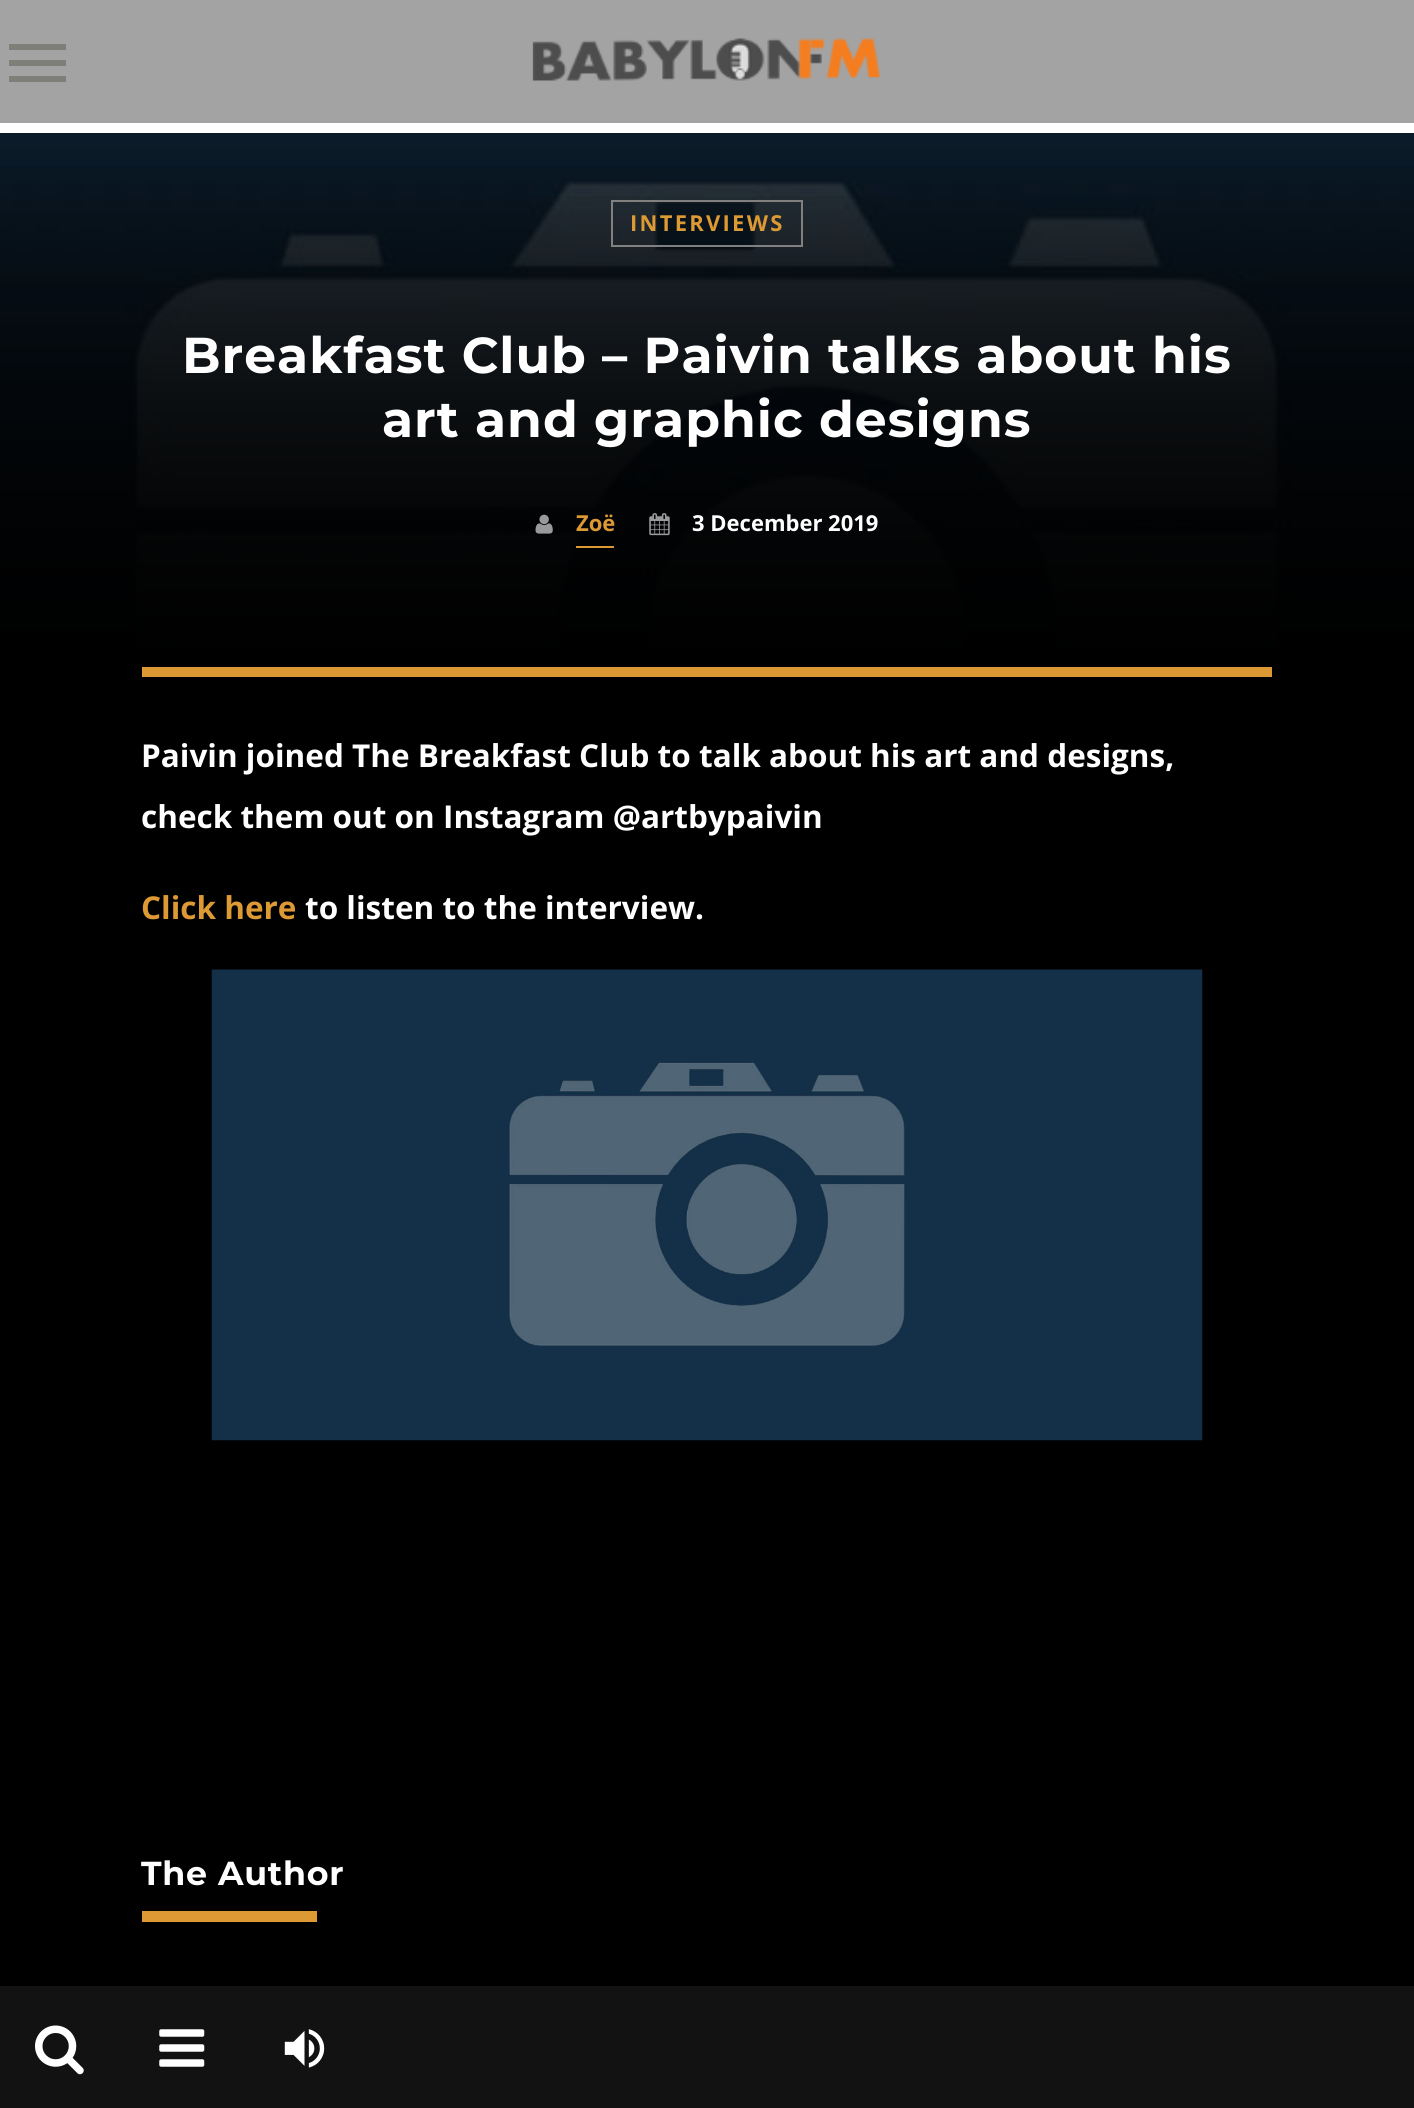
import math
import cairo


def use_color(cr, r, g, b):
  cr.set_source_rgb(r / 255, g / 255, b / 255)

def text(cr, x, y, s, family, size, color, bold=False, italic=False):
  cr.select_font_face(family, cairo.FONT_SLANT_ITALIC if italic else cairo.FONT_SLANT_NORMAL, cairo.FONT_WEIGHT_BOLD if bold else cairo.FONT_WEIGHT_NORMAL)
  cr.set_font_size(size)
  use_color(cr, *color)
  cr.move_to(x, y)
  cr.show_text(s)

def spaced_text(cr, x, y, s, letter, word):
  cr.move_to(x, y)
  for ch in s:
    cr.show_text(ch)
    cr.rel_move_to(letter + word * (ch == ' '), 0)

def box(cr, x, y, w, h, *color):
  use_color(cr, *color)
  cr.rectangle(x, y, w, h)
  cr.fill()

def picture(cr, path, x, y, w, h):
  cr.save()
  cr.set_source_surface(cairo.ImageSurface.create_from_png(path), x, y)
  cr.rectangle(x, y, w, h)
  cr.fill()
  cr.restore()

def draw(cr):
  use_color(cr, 0, 0, 0)
  cr.paint()
  box(cr, 0, 0, 1414, 123, 163, 163, 163)
  use_color(cr, 127, 127, 122)
  cr.new_path()
  cr.move_to(9, 82)
  cr.line_to(66, 82)
  cr.line_to(66, 76)
  cr.line_to(9, 76)
  cr.close_path()
  cr.move_to(9, 66)
  cr.line_to(66, 66)
  cr.line_to(66, 60)
  cr.line_to(9, 60)
  cr.close_path()
  cr.move_to(9, 44)
  cr.line_to(9, 50)
  cr.line_to(66, 50)
  cr.line_to(66, 44)
  cr.close_path()
  cr.fill()
  picture(cr, "img_01.png", 532, 38, 348, 43)
  box(cr, 0, 1986, 1414, 122, 18, 18, 18)
  picture(cr, "img_02.png", 35, 2025, 49, 50)
  picture(cr, "img_03.png", 159, 2029, 46, 38)
  picture(cr, "img_04.png", 284, 2029, 41, 39)
  box(cr, 0, 123, 1414, 10, 255, 255, 255)
  picture(cr, "img_05.png", 0, 133, 1414, 533)
  gradient = cairo.LinearGradient(707, -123, 707, 1236)
  gradient.add_color_stop_rgba(0, 0, 0, 0, 0)
  gradient.add_color_stop_rgba(1, 0, 0, 0, 0.83)
  cr.set_source(gradient)
  cr.rectangle(0, 133, 1414, 533)
  cr.fill()
  gradient = cairo.LinearGradient(707, -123, 707, 1278)
  gradient.add_color_stop_rgba(0, 0, 0, 0, 0)
  gradient.add_color_stop_rgba(1, 0, 0, 0, 1)
  cr.set_source(gradient)
  cr.rectangle(0, 133, 1414, 533)
  cr.fill()
  gradient = cairo.LinearGradient(707, 129, 707, 1764)
  gradient.add_color_stop_rgba(0, 0, 0, 0, 0)
  gradient.add_color_stop_rgba(1, 0, 0, 0, 1)
  cr.set_source(gradient)
  cr.rectangle(0, 196, 1414, 470)
  cr.fill()
  gradient = cairo.LinearGradient(707, 129, 707, 669)
  gradient.add_color_stop_rgba(0, 0, 0, 0, 0)
  gradient.add_color_stop_rgba(1, 0, 0, 0, 1)
  cr.set_source(gradient)
  cr.rectangle(0, 166, 1414, 500)
  cr.fill()
  cr.rectangle(612, 201, 190, 45)
  use_color(cr, 128, 128, 128)
  cr.stroke()
  picture(cr, "img_06.png", 535, 514, 18, 20)
  box(cr, 576, 546, 38, 2, 221, 153, 51)
  picture(cr, "img_07.png", 649, 513, 21, 23)
  box(cr, 142, 667, 1130, 10, 221, 153, 51)
  picture(cr, "img_08.png", 211, 969, 992, 472)
  box(cr, 142, 1911, 175, 11, 221, 153, 51)
  cr.select_font_face("Open Sans", cairo.FONT_SLANT_NORMAL, cairo.FONT_WEIGHT_BOLD)
  cr.set_font_size(22)
  spaced_text(cr, 630, 231, "INTERVIEWS", 2.25, 0)
  cr.select_font_face("Montserrat", cairo.FONT_SLANT_NORMAL, cairo.FONT_WEIGHT_BOLD)
  cr.set_font_size(50.4)
  use_color(cr, 255, 255, 255)
  spaced_text(cr, 182, 373, "Breakfast Club – Paivin talks about his", 1, 0)
  spaced_text(cr, 382, 437, "art and graphic designs", 1, 0)
  text(cr, 576, 531, "Zoë", "Open Sans", 22, (221, 153, 51), bold=True)
  text(cr, 692, 531, "3 December 2019", "Open Sans", 22, (255, 255, 255), bold=True)
  text(cr, 141, 767, "Paivin joined The Breakfast Club to talk about his art and designs,", "Open Sans", 31.5, (255, 255, 255), bold=True)
  text(cr, 141, 828, "check them out on Instagram @artbypaivin", "Open Sans", 31.5, (255, 255, 255), bold=True)
  text(cr, 141, 919, "Click here", "Open Sans", 31.5, (221, 153, 51), bold=True)
  text(cr, 305, 919, "to listen to the interview.", "Open Sans", 31.5, (255, 255, 255), bold=True)
  cr.select_font_face("Montserrat", cairo.FONT_SLANT_NORMAL, cairo.FONT_WEIGHT_BOLD)
  cr.set_font_size(33.25)
  spaced_text(cr, 141, 1885, "The Author", 0.75, 0)


surface = cairo.ImageSurface(cairo.FORMAT_RGB24, 1414, 2108)
cr = cairo.Context(surface)
options = cairo.FontOptions()
options.set_hint_metrics(cairo.HINT_METRICS_OFF)
options.set_hint_style(cairo.HINT_STYLE_NONE)
cr.set_font_options(options)
cr.set_miter_limit(4)
draw(cr)
surface.write_to_png("out.png")
